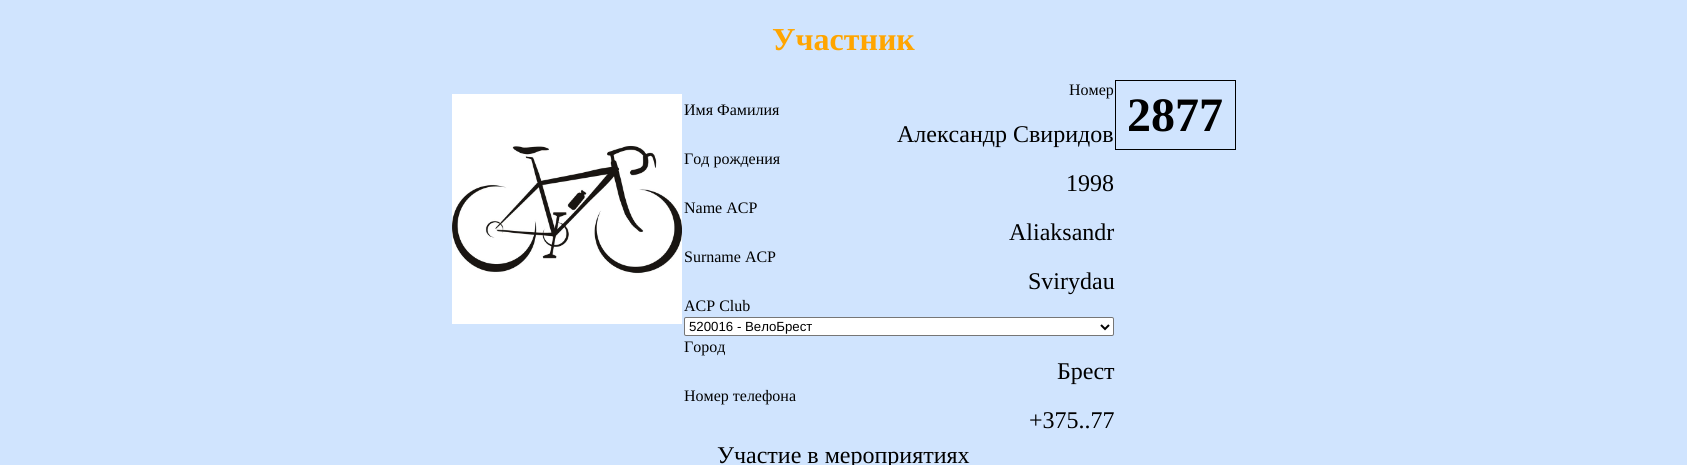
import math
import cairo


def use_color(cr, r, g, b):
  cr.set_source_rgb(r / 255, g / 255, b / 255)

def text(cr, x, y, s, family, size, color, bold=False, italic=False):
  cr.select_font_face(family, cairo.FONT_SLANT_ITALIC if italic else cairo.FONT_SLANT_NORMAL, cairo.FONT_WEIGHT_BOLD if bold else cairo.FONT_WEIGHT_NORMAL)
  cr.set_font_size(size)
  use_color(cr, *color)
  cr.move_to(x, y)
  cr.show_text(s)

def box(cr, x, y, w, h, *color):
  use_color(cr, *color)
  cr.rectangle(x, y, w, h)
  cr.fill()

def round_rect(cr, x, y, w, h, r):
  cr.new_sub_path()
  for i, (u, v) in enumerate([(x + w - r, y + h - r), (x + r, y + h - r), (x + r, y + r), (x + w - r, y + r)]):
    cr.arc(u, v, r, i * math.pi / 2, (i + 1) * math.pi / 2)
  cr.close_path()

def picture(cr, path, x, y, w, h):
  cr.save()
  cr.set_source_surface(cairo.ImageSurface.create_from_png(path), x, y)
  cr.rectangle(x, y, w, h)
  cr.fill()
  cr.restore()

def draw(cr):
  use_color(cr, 208, 228, 254)
  cr.paint()
  picture(cr, "img_01.png", 452, 94, 230, 230)
  box(cr, 1115, 80, 121, 1, 0, 0, 0)
  box(cr, 1235, 80, 1, 70, 0, 0, 0)
  box(cr, 1115, 149, 121, 1, 0, 0, 0)
  box(cr, 1115, 80, 1, 70, 0, 0, 0)
  use_color(cr, 255, 255, 255)
  round_rect(cr, 684.5, 317.5, 429, 18, 1.5)
  cr.fill_preserve()
  use_color(cr, 118, 118, 118)
  cr.set_line_width(1)
  cr.stroke()
  cr.new_path()
  cr.move_to(1101, 325)
  cr.line_to(1105, 329)
  cr.line_to(1109, 325)
  use_color(cr, 0, 0, 0)
  cr.set_line_width(2)
  cr.stroke()
  text(cr, 772, 50, "Участник", "Liberation Serif", 32, (255, 165, 0), bold=True)
  text(cr, 684, 115, "Имя Фамилия", "Liberation Serif", 16, (0, 0, 0))
  text(cr, 1069, 95, "Номер", "Liberation Serif", 16, (0, 0, 0))
  text(cr, 1127, 131, "2877", "Liberation Serif", 48, (0, 0, 0), bold=True)
  text(cr, 897, 142, "Александр Свиридов", "Liberation Serif", 24, (0, 0, 0))
  text(cr, 684, 164, "Год рождения", "Liberation Serif", 16, (0, 0, 0))
  text(cr, 1066, 191, "1998", "Liberation Serif", 24, (0, 0, 0))
  text(cr, 684, 213, "Name ACP", "Liberation Serif", 16, (0, 0, 0))
  text(cr, 1009, 240, "Aliaksandr", "Liberation Serif", 24, (0, 0, 0))
  text(cr, 684, 262, "Surname ACP", "Liberation Serif", 16, (0, 0, 0))
  text(cr, 1028, 289, "Svirydau", "Liberation Serif", 24, (0, 0, 0))
  text(cr, 684, 311, "ACP Club", "Liberation Serif", 16, (0, 0, 0))
  text(cr, 689, 331, "520016 - ВелоБрест", "Liberation Sans", 13.25, (0, 0, 0))
  text(cr, 684, 352, "Город", "Liberation Serif", 16, (0, 0, 0))
  text(cr, 1057, 379, "Брест", "Liberation Serif", 24, (0, 0, 0))
  text(cr, 684, 401, "Номер телефона", "Liberation Serif", 16, (0, 0, 0))
  text(cr, 1029, 428, "+375..77", "Liberation Serif", 24, (0, 0, 0))
  text(cr, 717, 463, "Участие в мероприятиях", "Liberation Serif", 24, (0, 0, 0))


surface = cairo.ImageSurface(cairo.FORMAT_RGB24, 1687, 465)
cr = cairo.Context(surface)
options = cairo.FontOptions()
options.set_hint_metrics(cairo.HINT_METRICS_OFF)
options.set_hint_style(cairo.HINT_STYLE_NONE)
cr.set_font_options(options)
cr.set_miter_limit(4)
draw(cr)
surface.write_to_png("out.png")
